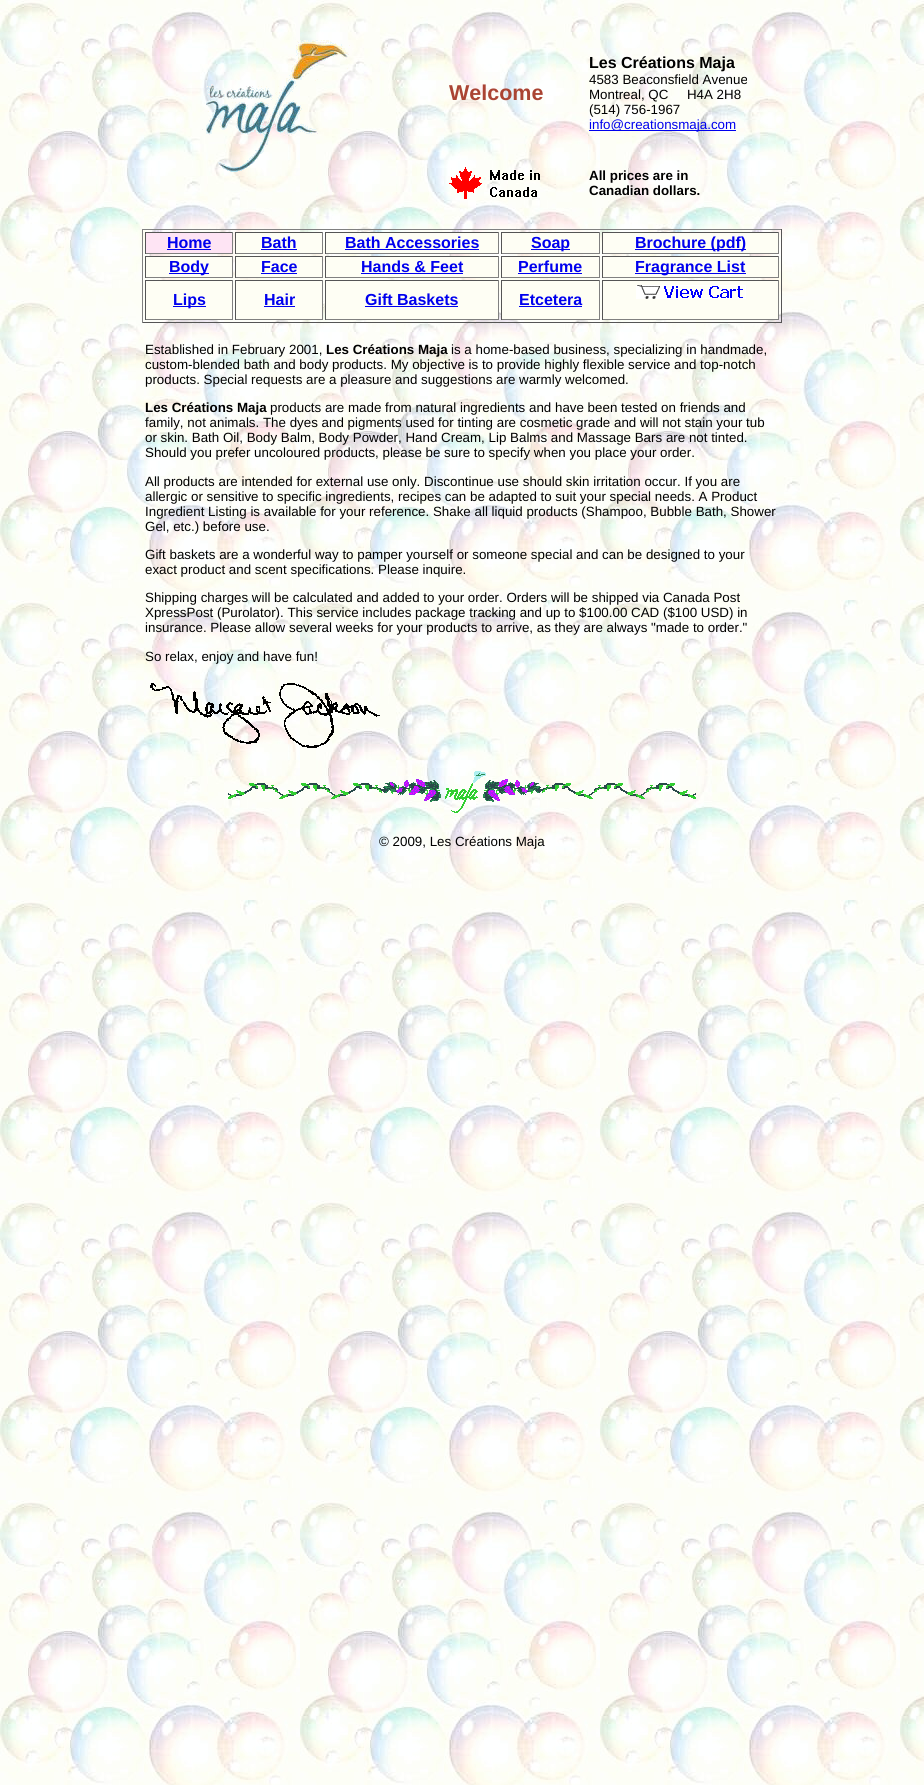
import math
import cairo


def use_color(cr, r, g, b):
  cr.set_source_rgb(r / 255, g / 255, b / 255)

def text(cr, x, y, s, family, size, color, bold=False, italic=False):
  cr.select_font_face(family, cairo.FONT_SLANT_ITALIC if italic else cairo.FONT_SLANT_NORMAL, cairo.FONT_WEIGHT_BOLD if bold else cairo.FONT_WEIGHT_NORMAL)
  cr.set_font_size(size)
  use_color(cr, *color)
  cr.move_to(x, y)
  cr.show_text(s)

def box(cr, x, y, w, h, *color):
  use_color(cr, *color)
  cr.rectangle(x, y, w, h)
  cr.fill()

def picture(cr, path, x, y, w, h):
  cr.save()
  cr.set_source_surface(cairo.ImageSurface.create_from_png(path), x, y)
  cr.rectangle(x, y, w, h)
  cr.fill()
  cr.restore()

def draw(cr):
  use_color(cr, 255, 255, 255)
  cr.paint()
  picture(cr, "img_01.png", 0, 0, 924, 1785)
  picture(cr, "img_02.png", 202, 40, 148, 132)
  box(cr, 589, 130, 147, 1, 0, 0, 238)
  picture(cr, "img_03.png", 449, 167, 91, 32)
  box(cr, 142, 229, 640, 1, 128, 128, 128)
  box(cr, 781, 229, 1, 94, 85, 85, 85)
  box(cr, 142, 322, 640, 1, 85, 85, 85)
  box(cr, 142, 229, 1, 94, 128, 128, 128)
  box(cr, 146, 233, 86, 20, 254, 228, 244)
  box(cr, 145, 232, 88, 1, 85, 85, 85)
  box(cr, 232, 232, 1, 22, 128, 128, 128)
  box(cr, 145, 253, 88, 1, 128, 128, 128)
  box(cr, 145, 232, 1, 22, 85, 85, 85)
  box(cr, 167, 249, 44, 1, 0, 0, 238)
  box(cr, 236, 233, 86, 20, 254, 254, 244)
  box(cr, 235, 232, 88, 1, 85, 85, 85)
  box(cr, 322, 232, 1, 22, 128, 128, 128)
  box(cr, 235, 253, 88, 1, 128, 128, 128)
  box(cr, 235, 232, 1, 22, 85, 85, 85)
  box(cr, 261, 249, 36, 1, 0, 0, 238)
  box(cr, 326, 233, 172, 20, 254, 254, 244)
  box(cr, 325, 232, 174, 1, 85, 85, 85)
  box(cr, 498, 232, 1, 22, 128, 128, 128)
  box(cr, 325, 253, 174, 1, 128, 128, 128)
  box(cr, 325, 232, 1, 22, 85, 85, 85)
  box(cr, 345, 249, 134, 1, 0, 0, 238)
  box(cr, 502, 233, 97, 20, 254, 254, 244)
  box(cr, 501, 232, 99, 1, 85, 85, 85)
  box(cr, 599, 232, 1, 22, 128, 128, 128)
  box(cr, 501, 253, 99, 1, 128, 128, 128)
  box(cr, 501, 232, 1, 22, 85, 85, 85)
  box(cr, 531, 249, 39, 1, 0, 0, 238)
  box(cr, 603, 233, 175, 20, 254, 254, 244)
  box(cr, 602, 232, 177, 1, 85, 85, 85)
  box(cr, 778, 232, 1, 22, 128, 128, 128)
  box(cr, 602, 253, 177, 1, 128, 128, 128)
  box(cr, 602, 232, 1, 22, 85, 85, 85)
  box(cr, 635, 249, 111, 1, 0, 0, 238)
  box(cr, 146, 257, 86, 20, 254, 254, 244)
  box(cr, 145, 256, 88, 1, 85, 85, 85)
  box(cr, 232, 256, 1, 22, 128, 128, 128)
  box(cr, 145, 277, 88, 1, 128, 128, 128)
  box(cr, 145, 256, 1, 22, 85, 85, 85)
  box(cr, 169, 273, 40, 1, 0, 0, 238)
  box(cr, 236, 257, 86, 20, 254, 254, 244)
  box(cr, 235, 256, 88, 1, 85, 85, 85)
  box(cr, 322, 256, 1, 22, 128, 128, 128)
  box(cr, 235, 277, 88, 1, 128, 128, 128)
  box(cr, 235, 256, 1, 22, 85, 85, 85)
  box(cr, 261, 273, 36, 1, 0, 0, 238)
  box(cr, 326, 257, 172, 20, 254, 254, 244)
  box(cr, 325, 256, 174, 1, 85, 85, 85)
  box(cr, 498, 256, 1, 22, 128, 128, 128)
  box(cr, 325, 277, 174, 1, 128, 128, 128)
  box(cr, 325, 256, 1, 22, 85, 85, 85)
  box(cr, 361, 273, 102, 1, 0, 0, 238)
  box(cr, 502, 257, 97, 20, 254, 254, 244)
  box(cr, 501, 256, 99, 1, 85, 85, 85)
  box(cr, 599, 256, 1, 22, 128, 128, 128)
  box(cr, 501, 277, 99, 1, 128, 128, 128)
  box(cr, 501, 256, 1, 22, 85, 85, 85)
  box(cr, 518, 273, 64, 1, 0, 0, 238)
  box(cr, 603, 257, 175, 20, 254, 254, 244)
  box(cr, 602, 256, 177, 1, 85, 85, 85)
  box(cr, 778, 256, 1, 22, 128, 128, 128)
  box(cr, 602, 277, 177, 1, 128, 128, 128)
  box(cr, 602, 256, 1, 22, 85, 85, 85)
  box(cr, 635, 273, 111, 1, 0, 0, 238)
  box(cr, 146, 281, 86, 38, 254, 254, 244)
  box(cr, 145, 280, 88, 1, 85, 85, 85)
  box(cr, 232, 280, 1, 40, 128, 128, 128)
  box(cr, 145, 319, 88, 1, 128, 128, 128)
  box(cr, 145, 280, 1, 40, 85, 85, 85)
  box(cr, 173, 306, 33, 1, 0, 0, 238)
  box(cr, 236, 281, 86, 38, 254, 254, 244)
  box(cr, 235, 280, 88, 1, 85, 85, 85)
  box(cr, 322, 280, 1, 40, 128, 128, 128)
  box(cr, 235, 319, 88, 1, 128, 128, 128)
  box(cr, 235, 280, 1, 40, 85, 85, 85)
  box(cr, 264, 306, 31, 1, 0, 0, 238)
  box(cr, 326, 281, 172, 38, 254, 254, 244)
  box(cr, 325, 280, 174, 1, 85, 85, 85)
  box(cr, 498, 280, 1, 40, 128, 128, 128)
  box(cr, 325, 319, 174, 1, 128, 128, 128)
  box(cr, 325, 280, 1, 40, 85, 85, 85)
  box(cr, 365, 306, 93, 1, 0, 0, 238)
  box(cr, 502, 281, 97, 38, 254, 254, 244)
  box(cr, 501, 280, 99, 1, 85, 85, 85)
  box(cr, 599, 280, 1, 40, 128, 128, 128)
  box(cr, 501, 319, 99, 1, 128, 128, 128)
  box(cr, 501, 280, 1, 40, 85, 85, 85)
  box(cr, 519, 306, 63, 1, 0, 0, 238)
  box(cr, 603, 281, 175, 38, 254, 254, 244)
  box(cr, 602, 280, 177, 1, 85, 85, 85)
  box(cr, 778, 280, 1, 40, 128, 128, 128)
  box(cr, 602, 319, 177, 1, 128, 128, 128)
  box(cr, 602, 280, 1, 40, 85, 85, 85)
  picture(cr, "img_04.png", 636, 285, 110, 14)
  picture(cr, "img_05.png", 150, 683, 230, 65)
  picture(cr, "img_06.png", 228, 771, 468, 42)
  text(cr, 449, 100, "Welcome", "Liberation Sans", 21.5, (170, 68, 51), bold=True)
  text(cr, 589, 68, "Les Créations Maja", "Liberation Sans", 16, (0, 0, 0), bold=True)
  text(cr, 589, 84, "4583 Beaconsfield Avenue", "Liberation Sans", 13.35, (0, 0, 0))
  text(cr, 589, 99, "Montreal, QC     H4A 2H8", "Liberation Sans", 13.35, (0, 0, 0))
  text(cr, 589, 114, "(514) 756-1967", "Liberation Sans", 13.35, (0, 0, 0))
  text(cr, 589, 129, "info@creationsmaja.com", "Liberation Sans", 13.35, (0, 0, 238))
  text(cr, 589, 180, "All prices are in", "Liberation Sans", 13.35, (0, 0, 0), bold=True)
  text(cr, 589, 195, "Canadian dollars.", "Liberation Sans", 13.35, (0, 0, 0), bold=True)
  text(cr, 167, 248, "Home", "Liberation Sans", 16, (0, 0, 238), bold=True)
  text(cr, 261, 248, "Bath", "Liberation Sans", 16, (0, 0, 238), bold=True)
  text(cr, 345, 248, "Bath Accessories", "Liberation Sans", 16, (0, 0, 238), bold=True)
  text(cr, 531, 248, "Soap", "Liberation Sans", 16, (0, 0, 238), bold=True)
  text(cr, 635, 248, "Brochure (pdf)", "Liberation Sans", 16, (0, 0, 238), bold=True)
  text(cr, 169, 272, "Body", "Liberation Sans", 16, (0, 0, 238), bold=True)
  text(cr, 261, 272, "Face", "Liberation Sans", 16, (0, 0, 238), bold=True)
  text(cr, 361, 272, "Hands & Feet", "Liberation Sans", 16, (0, 0, 238), bold=True)
  text(cr, 518, 272, "Perfume", "Liberation Sans", 16, (0, 0, 238), bold=True)
  text(cr, 635, 272, "Fragrance List", "Liberation Sans", 16, (0, 0, 238), bold=True)
  text(cr, 173, 305, "Lips", "Liberation Sans", 16, (0, 0, 238), bold=True)
  text(cr, 264, 305, "Hair", "Liberation Sans", 16, (0, 0, 238), bold=True)
  text(cr, 365, 305, "Gift Baskets", "Liberation Sans", 16, (0, 0, 238), bold=True)
  text(cr, 519, 305, "Etcetera", "Liberation Sans", 16, (0, 0, 238), bold=True)
  text(cr, 145, 354, "Established in February 2001,", "Liberation Sans", 13.35, (0, 0, 0))
  text(cr, 326, 354, "Les Créations Maja", "Liberation Sans", 13.35, (0, 0, 0), bold=True)
  text(cr, 451, 354, "is a home-based business, specializing in handmade,", "Liberation Sans", 13.35, (0, 0, 0))
  text(cr, 145, 369, "custom-blended bath and body products. My objective is to provide highly flexible service and top-notch", "Liberation Sans", 13.35, (0, 0, 0))
  text(cr, 145, 384, "products. Special requests are a pleasure and suggestions are warmly welcomed.", "Liberation Sans", 13.35, (0, 0, 0))
  text(cr, 145, 412, "Les Créations Maja", "Liberation Sans", 13.35, (0, 0, 0), bold=True)
  text(cr, 270, 412, "products are made from natural ingredients and have been tested on friends and", "Liberation Sans", 13.35, (0, 0, 0))
  text(cr, 145, 427, "family, not animals. The dyes and pigments used for tinting are cosmetic grade and will not stain your tub", "Liberation Sans", 13.35, (0, 0, 0))
  text(cr, 145, 442, "or skin. Bath Oil, Body Balm, Body Powder, Hand Cream, Lip Balms and Massage Bars are not tinted.", "Liberation Sans", 13.35, (0, 0, 0))
  text(cr, 145, 457, "Should you prefer uncoloured products, please be sure to specify when you place your order.", "Liberation Sans", 13.35, (0, 0, 0))
  text(cr, 145, 486, "All products are intended for external use only. Discontinue use should skin irritation occur. If you are", "Liberation Sans", 13.35, (0, 0, 0))
  text(cr, 145, 501, "allergic or sensitive to specific ingredients, recipes can be adapted to suit your special needs. A Product", "Liberation Sans", 13.35, (0, 0, 0))
  text(cr, 145, 516, "Ingredient Listing is available for your reference. Shake all liquid products (Shampoo, Bubble Bath, Shower", "Liberation Sans", 13.35, (0, 0, 0))
  text(cr, 145, 531, "Gel, etc.) before use.", "Liberation Sans", 13.35, (0, 0, 0))
  text(cr, 145, 559, "Gift baskets are a wonderful way to pamper yourself or someone special and can be designed to your", "Liberation Sans", 13.35, (0, 0, 0))
  text(cr, 145, 574, "exact product and scent specifications. Please inquire.", "Liberation Sans", 13.35, (0, 0, 0))
  text(cr, 145, 602, "Shipping charges will be calculated and added to your order. Orders will be shipped via Canada Post", "Liberation Sans", 13.35, (0, 0, 0))
  text(cr, 145, 617, "XpressPost (Purolator). This service includes package tracking and up to $100.00 CAD ($100 USD) in", "Liberation Sans", 13.35, (0, 0, 0))
  text(cr, 145, 632, "insurance. Please allow several weeks for your products to arrive, as they are always \"made to order.\"", "Liberation Sans", 13.35, (0, 0, 0))
  text(cr, 145, 661, "So relax, enjoy and have fun!", "Liberation Sans", 13.35, (0, 0, 0))
  text(cr, 379, 846, "© 2009, Les Créations Maja", "Liberation Sans", 13.35, (0, 0, 0))


surface = cairo.ImageSurface(cairo.FORMAT_RGB24, 924, 1785)
cr = cairo.Context(surface)
options = cairo.FontOptions()
options.set_hint_metrics(cairo.HINT_METRICS_OFF)
options.set_hint_style(cairo.HINT_STYLE_NONE)
cr.set_font_options(options)
cr.set_miter_limit(4)
draw(cr)
surface.write_to_png("out.png")
